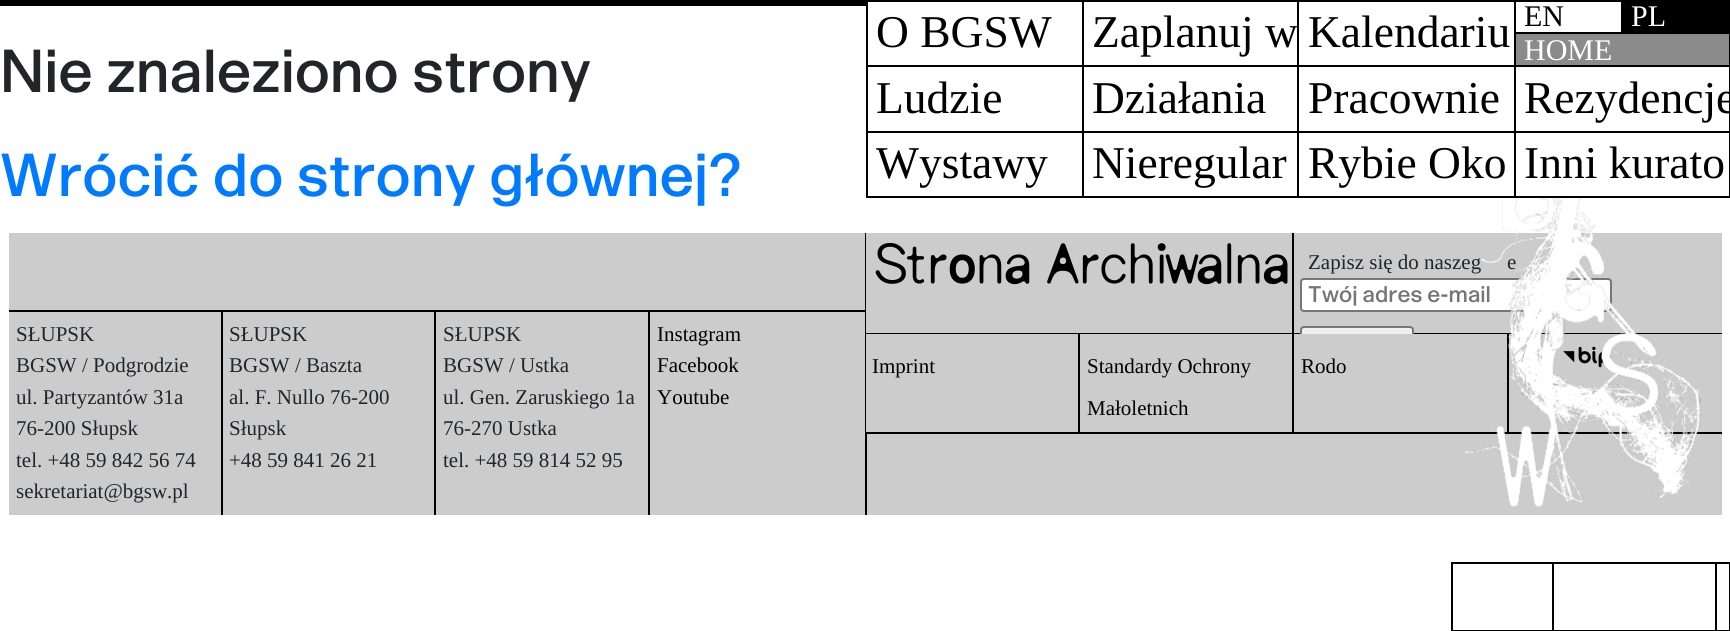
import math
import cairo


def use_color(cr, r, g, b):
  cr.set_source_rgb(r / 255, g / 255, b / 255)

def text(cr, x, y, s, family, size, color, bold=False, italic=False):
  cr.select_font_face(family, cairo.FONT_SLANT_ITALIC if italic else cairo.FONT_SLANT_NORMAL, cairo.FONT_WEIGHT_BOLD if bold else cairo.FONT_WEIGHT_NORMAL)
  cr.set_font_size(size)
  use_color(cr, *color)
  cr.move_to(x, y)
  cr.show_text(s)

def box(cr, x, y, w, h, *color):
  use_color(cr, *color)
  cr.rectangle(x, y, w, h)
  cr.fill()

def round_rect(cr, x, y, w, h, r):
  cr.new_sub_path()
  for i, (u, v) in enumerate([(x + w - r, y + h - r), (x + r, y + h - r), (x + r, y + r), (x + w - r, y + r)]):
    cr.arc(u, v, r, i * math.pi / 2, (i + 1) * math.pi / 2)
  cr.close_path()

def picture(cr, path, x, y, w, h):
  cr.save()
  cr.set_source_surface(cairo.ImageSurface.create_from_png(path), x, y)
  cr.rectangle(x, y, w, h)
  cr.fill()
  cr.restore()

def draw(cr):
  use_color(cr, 255, 255, 255)
  cr.paint()
  box(cr, 0, 0, 866, 6, 0, 0, 0)
  box(cr, 866, 0, 864, 2, 0, 0, 0)
  box(cr, 866, 0, 2, 198, 0, 0, 0)
  box(cr, 1082, 2, 2, 196, 0, 0, 0)
  box(cr, 868, 65, 215, 2, 0, 0, 0)
  box(cr, 1297, 2, 2, 196, 0, 0, 0)
  box(cr, 1083, 65, 216, 2, 0, 0, 0)
  box(cr, 1514, 2, 2, 196, 0, 0, 0)
  box(cr, 1299, 65, 217, 2, 0, 0, 0)
  box(cr, 1516, 34, 213, 31, 139, 139, 139)
  box(cr, 1729, 2, 1, 196, 0, 0, 0)
  box(cr, 1516, 65, 214, 2, 0, 0, 0)
  box(cr, 1621, 2, 1, 31, 0, 0, 0)
  box(cr, 1516, 32, 106, 2, 0, 0, 0)
  box(cr, 1622, 2, 107, 32, 0, 0, 0)
  box(cr, 868, 131, 862, 2, 0, 0, 0)
  box(cr, 868, 196, 862, 2, 0, 0, 0)
  box(cr, 9, 233, 1713, 282, 204, 204, 204)
  box(cr, 865, 233, 2, 282, 0, 0, 0)
  box(cr, 9, 310, 856, 2, 0, 0, 0)
  box(cr, 221, 312, 2, 203, 0, 0, 0)
  box(cr, 434, 312, 2, 203, 0, 0, 0)
  box(cr, 648, 312, 2, 203, 0, 0, 0)
  box(cr, 866, 233, 1, 100, 204, 204, 204)
  box(cr, 866, 333, 856, 1, 0, 0, 0)
  box(cr, 1292, 233, 2, 101, 0, 0, 0)
  use_color(cr, 255, 255, 255)
  round_rect(cr, 1301, 279, 310, 32, 3)
  cr.fill_preserve()
  use_color(cr, 118, 118, 118)
  cr.stroke()
  use_color(cr, 239, 239, 239)
  round_rect(cr, 1301, 327, 112, 33, 3)
  cr.fill_preserve()
  use_color(cr, 118, 118, 118)
  cr.stroke()
  box(cr, 866, 334, 548, 98, 204, 204, 204)
  box(cr, 866, 432, 856, 2, 0, 0, 0)
  box(cr, 1078, 334, 2, 98, 0, 0, 0)
  box(cr, 1292, 334, 2, 98, 0, 0, 0)
  box(cr, 1507, 334, 2, 98, 0, 0, 0)
  picture(cr, "img_01.png", 1563, 346, 49, 22)
  cr.rectangle(1452, 563, 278, 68)
  cr.stroke()
  box(cr, 1552, 564, 2, 66, 0, 0, 0)
  box(cr, 1715, 564, 2, 66, 0, 0, 0)
  text(cr, 0, 92, "Nie znaleziono strony", "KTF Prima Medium", 56, (33, 37, 41))
  text(cr, 0, 196, "Wrócić do strony głównej?", "KTF Prima Medium", 56, (0, 123, 255))
  text(cr, 876, 47, "O BGSW", "Liberation Serif", 45.5, (0, 0, 0))
  text(cr, 1092, 47, "Zaplanuj w", "Liberation Serif", 45.5, (0, 0, 0))
  text(cr, 1308, 47, "Kalendariu", "Liberation Serif", 45.5, (0, 0, 0))
  text(cr, 1524, 26, "EN", "Liberation Serif", 30, (0, 0, 0))
  text(cr, 1631, 26, "PL", "Liberation Serif", 30, (255, 255, 255))
  text(cr, 1524, 60, "HOME", "Liberation Serif", 30, (255, 255, 255))
  text(cr, 876, 113, "Ludzie", "Liberation Serif", 45.5, (0, 0, 0))
  text(cr, 1092, 113, "Działania", "Liberation Serif", 45.5, (0, 0, 0))
  text(cr, 1308, 113, "Pracownie", "Liberation Serif", 45.5, (0, 0, 0))
  cr.save()
  cr.rectangle(1516, 67, 213, 64)
  cr.clip()
  text(cr, 1524, 113, "Rezydencje", "Liberation Serif", 45.5, (0, 0, 0))
  cr.restore()
  text(cr, 876, 178, "Wystawy", "Liberation Serif", 45.5, (0, 0, 0))
  text(cr, 1092, 178, "Nieregular", "Liberation Serif", 45.5, (0, 0, 0))
  text(cr, 1308, 178, "Rybie Oko", "Liberation Serif", 45.5, (0, 0, 0))
  text(cr, 1524, 178, "Inni kurato", "Liberation Serif", 45.5, (0, 0, 0))
  text(cr, 16, 341, "SŁUPSK", "Liberation Serif", 21, (33, 37, 41))
  text(cr, 16, 372, "BGSW / Podgrodzie", "Liberation Serif", 21, (33, 37, 41))
  text(cr, 16, 404, "ul. Partyzantów 31a", "Liberation Serif", 21, (33, 37, 41))
  text(cr, 16, 435, "76-200 Słupsk", "Liberation Serif", 21, (33, 37, 41))
  text(cr, 16, 467, "tel. +48 59 842 56 74", "Liberation Serif", 21, (33, 37, 41))
  text(cr, 16, 498, "sekretariat@bgsw.pl", "Liberation Serif", 21, (33, 37, 41))
  text(cr, 229, 341, "SŁUPSK", "Liberation Serif", 21, (33, 37, 41))
  text(cr, 229, 372, "BGSW / Baszta", "Liberation Serif", 21, (33, 37, 41))
  text(cr, 229, 404, "al. F. Nullo 76-200", "Liberation Serif", 21, (33, 37, 41))
  text(cr, 229, 435, "Słupsk", "Liberation Serif", 21, (33, 37, 41))
  text(cr, 229, 467, "+48 59 841 26 21", "Liberation Serif", 21, (33, 37, 41))
  text(cr, 443, 341, "SŁUPSK", "Liberation Serif", 21, (33, 37, 41))
  text(cr, 443, 372, "BGSW / Ustka", "Liberation Serif", 21, (33, 37, 41))
  text(cr, 443, 404, "ul. Gen. Zaruskiego 1a", "Liberation Serif", 21, (33, 37, 41))
  text(cr, 443, 435, "76-270 Ustka", "Liberation Serif", 21, (33, 37, 41))
  text(cr, 443, 467, "tel. +48 59 814 52 95", "Liberation Serif", 21, (33, 37, 41))
  text(cr, 657, 341, "Instagram", "Liberation Serif", 21, (0, 0, 0))
  text(cr, 657, 372, "Facebook", "Liberation Serif", 21, (0, 0, 0))
  text(cr, 657, 404, "Youtube", "Liberation Serif", 21, (0, 0, 0))
  text(cr, 874, 283, "Strona Archiwalna", "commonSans", 56, (0, 0, 0))
  text(cr, 1308, 269, "Zapisz się do naszeg", "Liberation Serif", 21, (33, 37, 41))
  text(cr, 1507, 269, "e", "Liberation Serif", 21, (33, 37, 41))
  text(cr, 1308, 302, "Twój adres e-mail", "KTF Prima Medium", 21, (117, 117, 117))
  text(cr, 872, 373, "Imprint", "Liberation Serif", 21, (0, 0, 0))
  text(cr, 1087, 373, "Standardy Ochrony", "Liberation Serif", 21, (0, 0, 0))
  text(cr, 1087, 415, "Małoletnich", "Liberation Serif", 21, (0, 0, 0))
  text(cr, 1301, 373, "Rodo", "Liberation Serif", 21, (0, 0, 0))
  picture(cr, "img_02.png", 1465, 198, 237, 309)


surface = cairo.ImageSurface(cairo.FORMAT_RGB24, 1730, 631)
cr = cairo.Context(surface)
options = cairo.FontOptions()
options.set_hint_metrics(cairo.HINT_METRICS_OFF)
options.set_hint_style(cairo.HINT_STYLE_NONE)
cr.set_font_options(options)
cr.set_miter_limit(4)
draw(cr)
surface.write_to_png("out.png")
